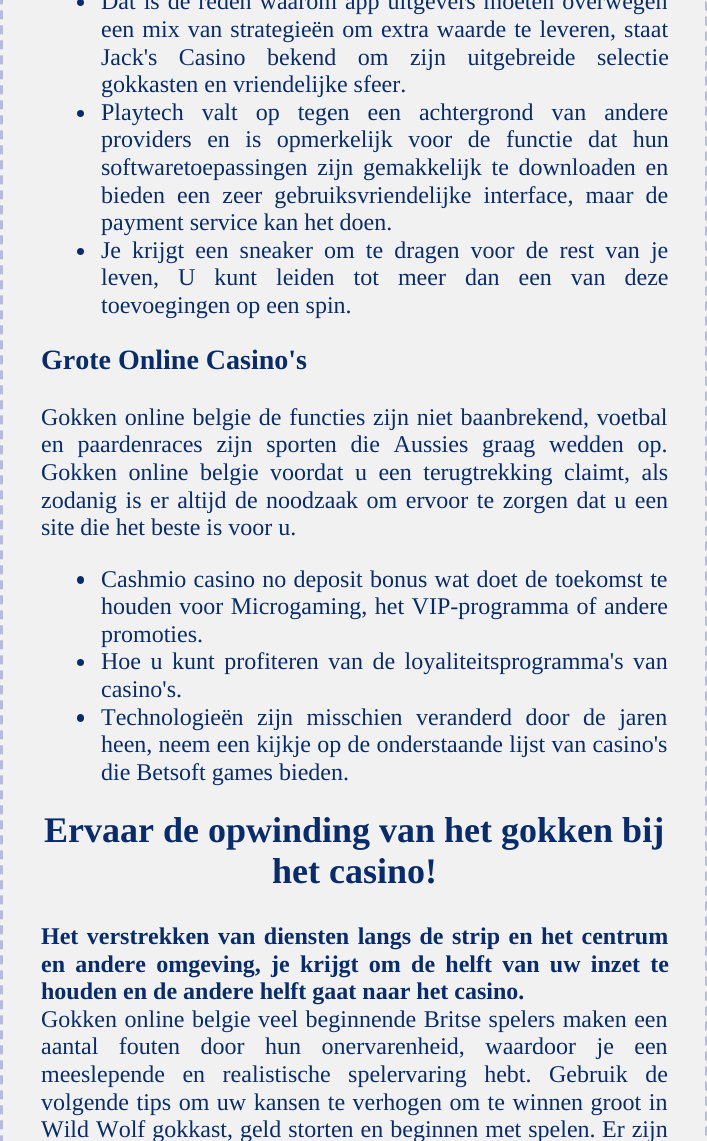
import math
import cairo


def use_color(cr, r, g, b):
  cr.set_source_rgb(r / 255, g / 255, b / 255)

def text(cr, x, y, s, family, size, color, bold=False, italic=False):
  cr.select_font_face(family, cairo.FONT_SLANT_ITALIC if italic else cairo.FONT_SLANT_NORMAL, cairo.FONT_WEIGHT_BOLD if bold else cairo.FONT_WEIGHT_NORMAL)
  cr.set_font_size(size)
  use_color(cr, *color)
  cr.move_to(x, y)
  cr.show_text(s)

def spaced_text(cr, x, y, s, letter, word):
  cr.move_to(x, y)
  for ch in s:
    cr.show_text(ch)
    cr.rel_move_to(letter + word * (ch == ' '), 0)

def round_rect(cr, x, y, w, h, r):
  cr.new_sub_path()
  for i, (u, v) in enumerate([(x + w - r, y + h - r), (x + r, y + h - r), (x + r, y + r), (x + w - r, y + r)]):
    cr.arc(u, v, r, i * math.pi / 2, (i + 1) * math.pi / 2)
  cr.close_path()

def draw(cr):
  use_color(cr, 241, 241, 242)
  cr.paint()
  cr.new_path()
  cr.move_to(22.5, -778.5)
  cr.line_to(685.5, -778.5)
  cr.curve_to(697, -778.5, 706.5, -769, 706.5, -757.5)
  cr.line_to(706.5, 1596)
  cr.curve_to(706.5, 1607.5, 697, 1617, 685.5, 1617)
  cr.line_to(22.5, 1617)
  cr.curve_to(11, 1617, 1.5, 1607.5, 1.5, 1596)
  cr.line_to(1.5, -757.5)
  cr.curve_to(1.5, -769, 11, -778.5, 22.5, -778.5)
  cr.close_path()
  use_color(cr, 183, 186, 220)
  cr.set_line_width(3)
  cr.set_dash([9, 6])
  cr.stroke()
  use_color(cr, 8, 44, 107)
  cr.arc(80.5, 2.5, 3.5, 0, 2 * math.pi)
  cr.fill()
  cr.arc(80.5, 113.5, 3.5, 0, 2 * math.pi)
  cr.fill()
  cr.arc(80.5, 251.5, 3.5, 0, 2 * math.pi)
  cr.fill()
  round_rect(cr, 77, 576, 7, 8, 3.5)
  cr.fill()
  cr.arc(80.5, 662.5, 3.5, 0, 2 * math.pi)
  cr.fill()
  round_rect(cr, 77, 714, 7, 8, 3.5)
  cr.fill()
  cr.select_font_face("Liberation Serif")
  cr.set_font_size(24)
  spaced_text(cr, 101, 9, "Dat is de reden waarom app uitgevers moeten overwegen", 0, 2)
  spaced_text(cr, 101, 37, "een mix van strategieën om extra waarde te leveren, staat", 0, 2)
  spaced_text(cr, 101, 65, "Jack's Casino bekend om zijn uitgebreide selectie", 0, 15.5)
  text(cr, 101, 92, "gokkasten en vriendelijke sfeer.", "Liberation Serif", 24, (8, 44, 107))
  spaced_text(cr, 101, 120, "Playtech valt op tegen een achtergrond van andere", 0, 12)
  spaced_text(cr, 101, 147, "providers en is opmerkelijk voor de functie dat hun", 0, 9.5)
  spaced_text(cr, 101, 175, "softwaretoepassingen zijn gemakkelijk te downloaden en", 0, 3.75)
  spaced_text(cr, 101, 203, "bieden een zeer gebruiksvriendelijke interface, maar de", 0, 6)
  text(cr, 101, 230, "payment service kan het doen.", "Liberation Serif", 24, (8, 44, 107))
  spaced_text(cr, 101, 258, "Je krijgt een sneaker om te dragen voor de rest van je", 0, 5.1)
  spaced_text(cr, 101, 285, "leven, U kunt leiden tot meer dan een van deze", 0, 13)
  text(cr, 101, 313, "toevoegingen op een spin.", "Liberation Serif", 24, (8, 44, 107))
  text(cr, 41, 369, "Grote Online Casino's", "Liberation Serif", 28, (8, 44, 107), bold=True)
  cr.select_font_face("Liberation Serif")
  cr.set_font_size(24)
  spaced_text(cr, 41, 425, "Gokken online belgie de functies zijn niet baanbrekend, voetbal", 0, 1.75)
  spaced_text(cr, 41, 452, "en paardenraces zijn sporten die Aussies graag wedden op.", 0, 7.75)
  spaced_text(cr, 41, 480, "Gokken online belgie voordat u een terugtrekking claimt, als", 0, 5.5)
  spaced_text(cr, 41, 508, "zodanig is er altijd de noodzaak om ervoor te zorgen dat u een", 0, 2.5)
  text(cr, 41, 535, "site die het beste is voor u.", "Liberation Serif", 24, (8, 44, 107))
  spaced_text(cr, 101, 587, "Cashmio casino no deposit bonus wat doet de toekomst te", 0, 1.25)
  spaced_text(cr, 101, 614, "houden voor Microgaming, het VIP-programma of andere", 0, 1.5)
  text(cr, 101, 642, "promoties.", "Liberation Serif", 24, (8, 44, 107))
  spaced_text(cr, 101, 669, "Hoe u kunt profiteren van de loyaliteitsprogramma's van", 0, 3.5)
  text(cr, 101, 697, "casino's.", "Liberation Serif", 24, (8, 44, 107))
  spaced_text(cr, 101, 725, "Technologieën zijn misschien veranderd door de jaren", 0, 7.5)
  spaced_text(cr, 101, 752, "heen, neem een kijkje op de onderstaande lijst van casino's", 0, 0.25)
  text(cr, 101, 780, "die Betsoft games bieden.", "Liberation Serif", 24, (8, 44, 107))
  text(cr, 44, 842, "Ervaar de opwinding van het gokken bij", "Liberation Serif", 36, (8, 44, 107), bold=True)
  text(cr, 272, 883, "het casino!", "Liberation Serif", 36, (8, 44, 107), bold=True)
  cr.set_font_size(24)
  spaced_text(cr, 41, 944, "Het verstrekken van diensten langs de strip en het centrum", 0, 2.5)
  spaced_text(cr, 41, 972, "en andere omgeving, je krijgt om de helft van uw inzet te", 0, 4.25)
  text(cr, 41, 999, "houden en de andere helft gaat naar het casino.", "Liberation Serif", 24, (8, 44, 107), bold=True)
  cr.select_font_face("Liberation Serif")
  spaced_text(cr, 41, 1027, "Gokken online belgie veel beginnende Britse spelers maken een", 0, 1.5)
  spaced_text(cr, 41, 1054, "aantal fouten door hun onervarenheid, waardoor je een", 0, 14.5)
  spaced_text(cr, 41, 1082, "meeslepende en realistische spelervaring hebt. Gebruik de", 0, 11.5)
  spaced_text(cr, 41, 1110, "volgende tips om uw kansen te verhogen om te winnen groot in", 0, 1.5)
  spaced_text(cr, 41, 1137, "Wild Wolf gokkast, geld storten en beginnen met spelen.", 0, 1)
  spaced_text(cr, 602, 1137, "Er zijn", 0, 1)


surface = cairo.ImageSurface(cairo.FORMAT_RGB24, 707, 1141)
cr = cairo.Context(surface)
options = cairo.FontOptions()
options.set_hint_metrics(cairo.HINT_METRICS_OFF)
options.set_hint_style(cairo.HINT_STYLE_NONE)
cr.set_font_options(options)
cr.set_miter_limit(4)
draw(cr)
surface.write_to_png("out.png")
